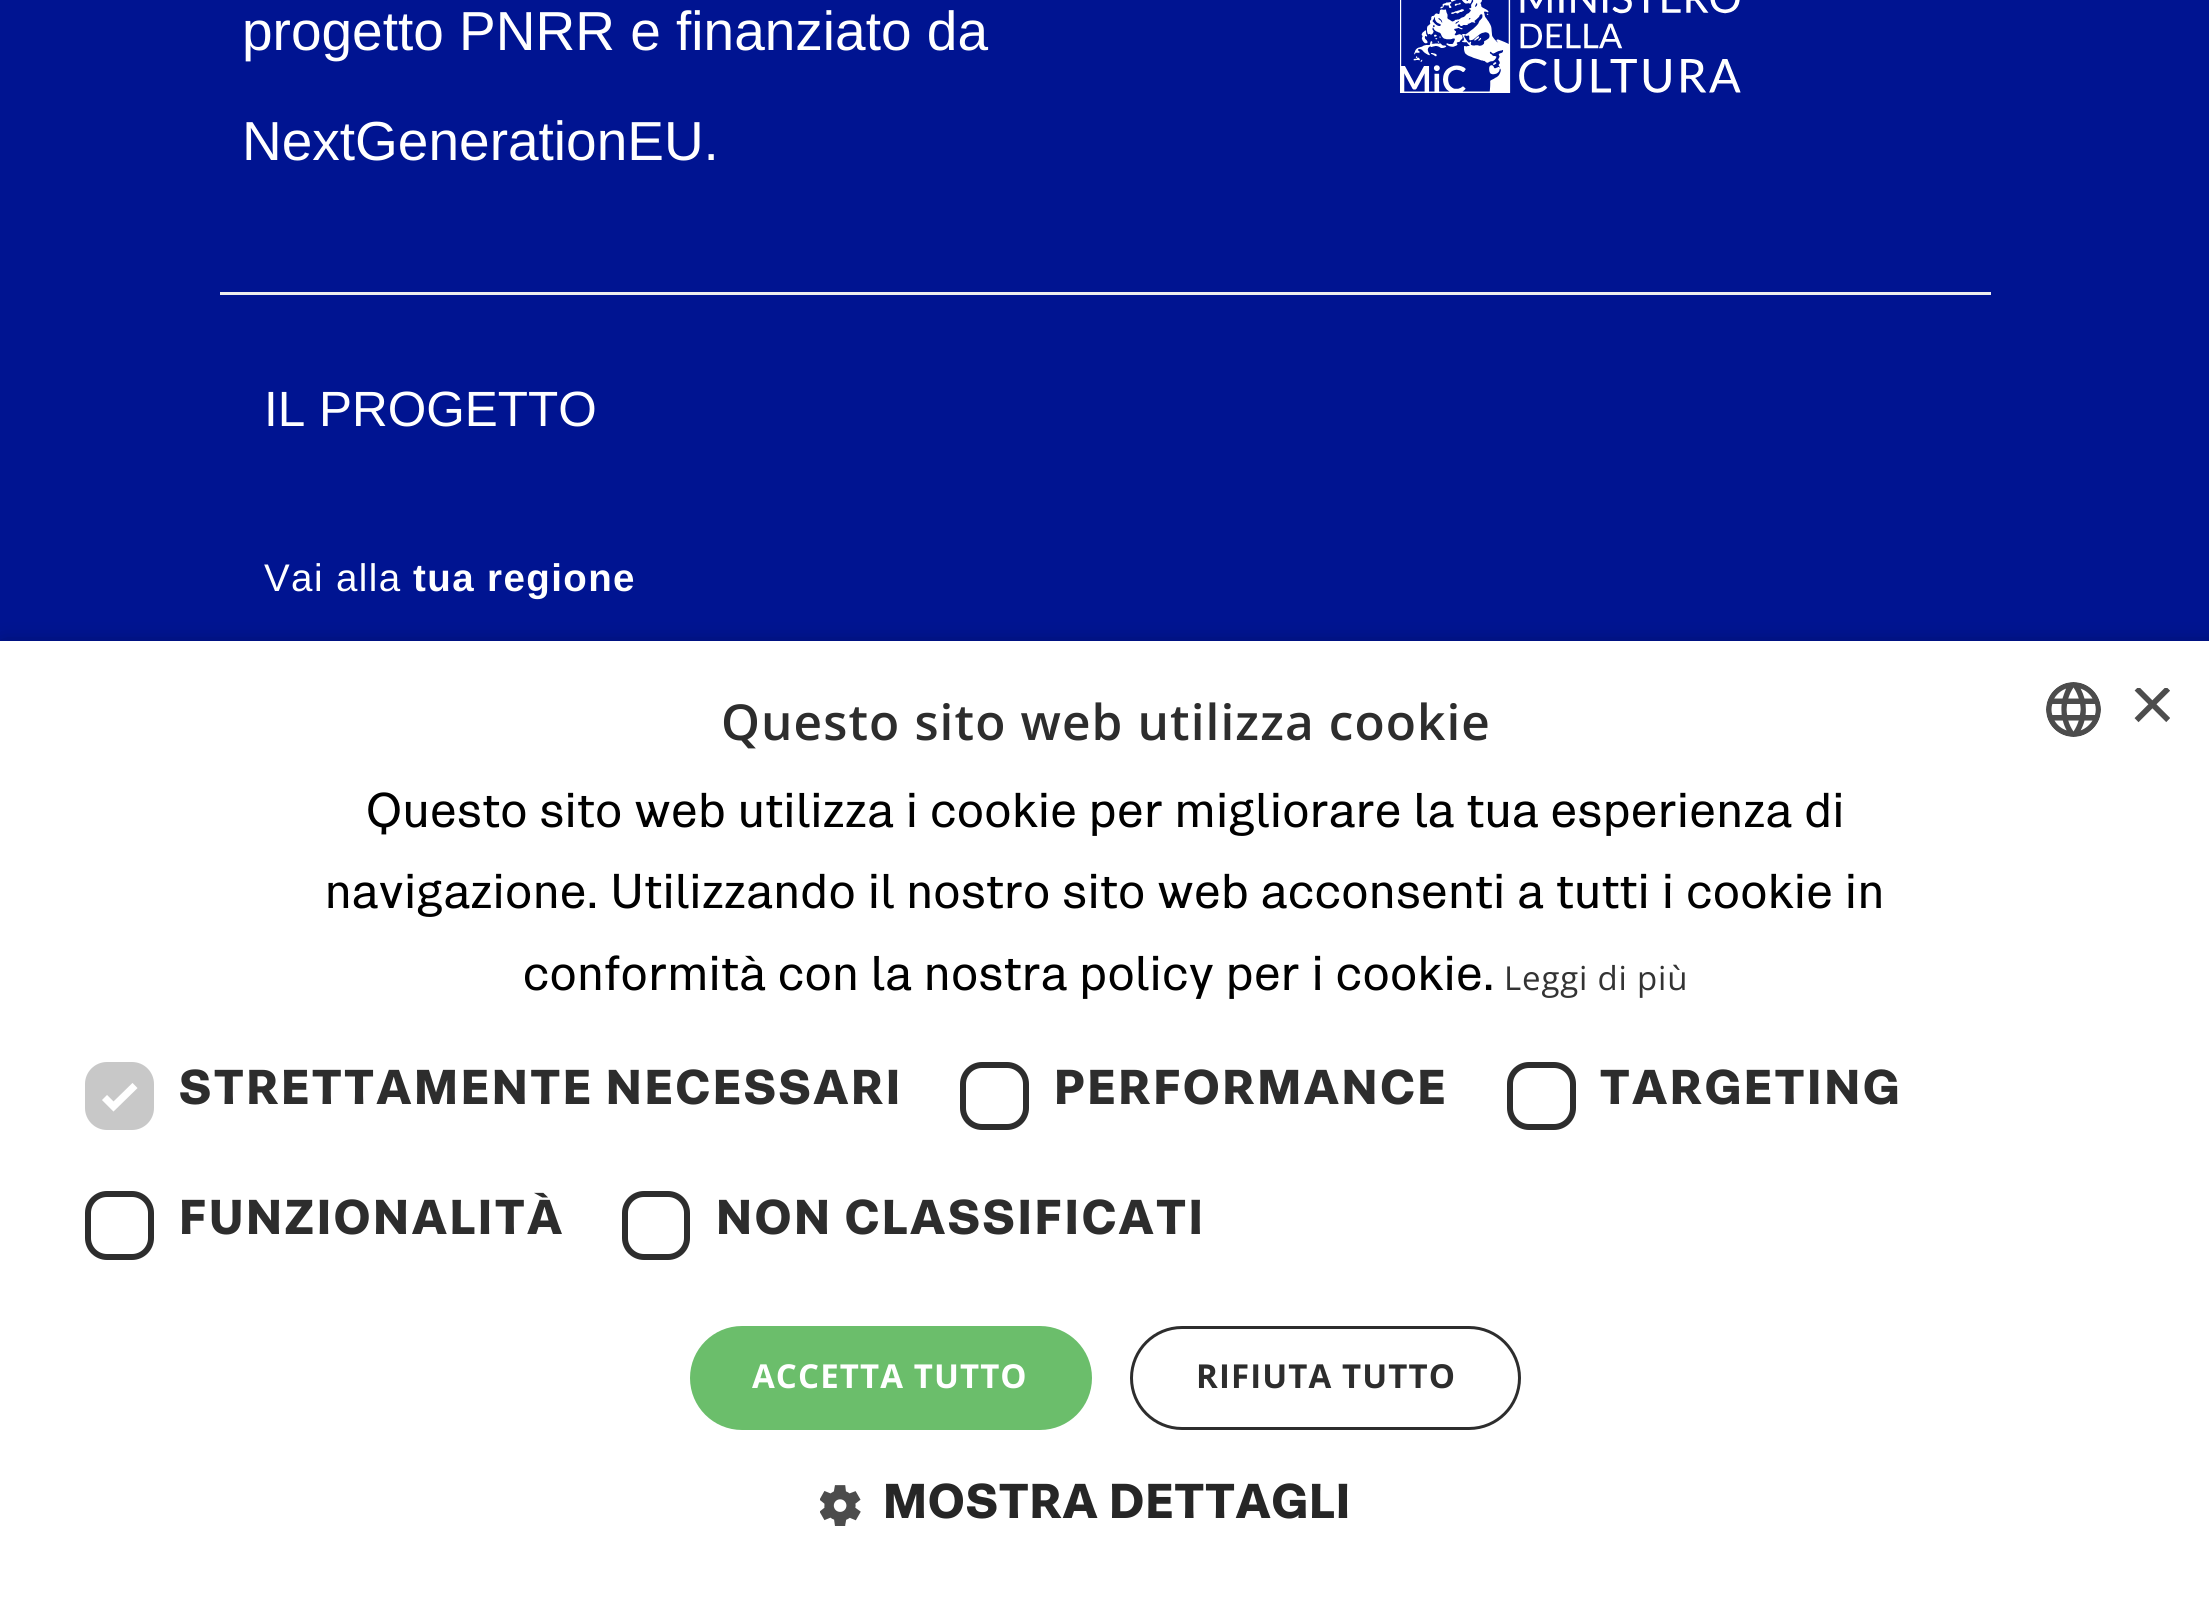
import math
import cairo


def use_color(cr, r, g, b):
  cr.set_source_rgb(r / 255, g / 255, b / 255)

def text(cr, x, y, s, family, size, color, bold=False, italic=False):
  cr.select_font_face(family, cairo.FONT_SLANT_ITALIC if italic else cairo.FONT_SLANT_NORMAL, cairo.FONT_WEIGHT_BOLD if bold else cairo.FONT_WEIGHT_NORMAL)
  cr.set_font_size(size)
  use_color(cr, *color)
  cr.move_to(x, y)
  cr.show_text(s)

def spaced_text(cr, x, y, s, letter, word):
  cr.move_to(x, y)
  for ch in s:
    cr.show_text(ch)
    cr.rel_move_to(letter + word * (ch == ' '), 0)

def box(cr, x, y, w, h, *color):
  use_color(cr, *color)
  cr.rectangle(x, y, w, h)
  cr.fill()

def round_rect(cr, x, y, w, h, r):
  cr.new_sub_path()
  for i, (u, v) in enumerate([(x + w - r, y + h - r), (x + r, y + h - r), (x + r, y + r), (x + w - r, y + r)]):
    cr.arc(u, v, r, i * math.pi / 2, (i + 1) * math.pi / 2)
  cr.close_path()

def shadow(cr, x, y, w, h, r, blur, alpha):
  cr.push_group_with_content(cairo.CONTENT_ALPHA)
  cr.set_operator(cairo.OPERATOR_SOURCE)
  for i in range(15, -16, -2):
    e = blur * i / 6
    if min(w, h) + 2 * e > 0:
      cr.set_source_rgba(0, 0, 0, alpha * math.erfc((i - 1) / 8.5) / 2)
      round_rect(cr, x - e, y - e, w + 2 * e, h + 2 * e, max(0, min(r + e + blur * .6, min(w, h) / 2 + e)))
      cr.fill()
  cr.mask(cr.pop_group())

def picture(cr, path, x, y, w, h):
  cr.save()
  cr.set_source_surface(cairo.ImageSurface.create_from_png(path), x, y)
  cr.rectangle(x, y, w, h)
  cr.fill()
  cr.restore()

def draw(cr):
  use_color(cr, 0, 20, 145)
  cr.paint()
  picture(cr, "img_01.png", 1400, 0, 341, 93)
  box(cr, 220, 292, 1771, 3, 238, 238, 238)
  use_color(cr, 0, 0, 0)
  shadow(cr, 3, 646, 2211, 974, 0, 11, 0.35)
  box(cr, 0, 641, 2209, 973, 255, 255, 255)
  picture(cr, "img_02.png", 2046, 682, 55, 55)
  use_color(cr, 200, 200, 200)
  round_rect(cr, 85, 1062, 69, 68, 22)
  cr.fill()
  cr.new_path()
  cr.move_to(104.5, 1097.5)
  cr.line_to(113.5, 1106.5)
  cr.line_to(135, 1085.5)
  use_color(cr, 255, 255, 255)
  cr.set_line_width(7.2)
  cr.stroke()
  round_rect(cr, 963, 1065, 63, 62, 19)
  use_color(cr, 45, 45, 45)
  cr.set_line_width(6)
  cr.stroke()
  round_rect(cr, 1510, 1065, 63, 62, 19)
  cr.stroke()
  round_rect(cr, 88, 1194, 63, 63, 19)
  cr.stroke()
  round_rect(cr, 625, 1194, 62, 63, 19)
  cr.stroke()
  use_color(cr, 107, 190, 107)
  round_rect(cr, 690, 1326, 402, 104, 52)
  cr.fill()
  round_rect(cr, 1131.5, 1327.5, 388, 101, 50.5)
  use_color(cr, 45, 45, 45)
  cr.set_line_width(3)
  cr.stroke()
  picture(cr, "img_03.png", 820, 1485, 41, 41)
  text(cr, 242, 50, "progetto PNRR e finanziato da", "Liberation Sans", 55, (255, 255, 255))
  text(cr, 242, 160, "NextGenerationEU.", "Liberation Sans", 55, (255, 255, 255))
  text(cr, 264, 426, "IL PROGETTO", "Liberation Sans", 49.5, (255, 255, 255))
  cr.set_font_size(38.5)
  spaced_text(cr, 264, 591, "Vai alla", 1.4, 0)
  cr.select_font_face("Liberation Sans", cairo.FONT_SLANT_NORMAL, cairo.FONT_WEIGHT_BOLD)
  spaced_text(cr, 413, 591, "tua regione", 1.4, 0)
  cr.select_font_face("Open Sans SemiBold")
  cr.set_font_size(49.5)
  use_color(cr, 45, 45, 45)
  spaced_text(cr, 721, 740, "Questo sito web utilizza cookie", 1.1, 0)
  cr.save()
  cr.rectangle(2129, 688, 41, 41)
  cr.clip()
  text(cr, 2129, 731, "×", "Liberation Sans", 80, (77, 77, 77))
  cr.restore()
  cr.select_font_face("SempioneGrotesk")
  use_color(cr, 0, 0, 0)
  spaced_text(cr, 366, 827, "Questo sito web utilizza i cookie per migliorare la tua esperienza di", 0.82, 0)
  spaced_text(cr, 325, 908, "navigazione. Utilizzando il nostro sito web acconsenti a tutti i cookie in", 0.82, 0)
  spaced_text(cr, 523, 990, "conformità con la nostra policy per i cookie.", 0.82, 0)
  cr.select_font_face("Open Sans")
  cr.set_font_size(33)
  use_color(cr, 51, 51, 51)
  spaced_text(cr, 1504, 990, "Leggi di più", 0.82, 0)
  cr.select_font_face("SempioneGrotesk", cairo.FONT_SLANT_NORMAL, cairo.FONT_WEIGHT_BOLD)
  cr.set_font_size(49.5)
  use_color(cr, 45, 45, 45)
  spaced_text(cr, 179, 1104, "STRETTAMENTE NECESSARI", 2.75, 0)
  spaced_text(cr, 1054, 1104, "PERFORMANCE", 2.75, 0)
  spaced_text(cr, 1600, 1104, "TARGETING", 2.75, 0)
  spaced_text(cr, 179, 1234, "FUNZIONALITÀ", 2.75, 0)
  spaced_text(cr, 716, 1234, "NON CLASSIFICATI", 2.75, 0)
  cr.select_font_face("Open Sans", cairo.FONT_SLANT_NORMAL, cairo.FONT_WEIGHT_BOLD)
  cr.set_font_size(33)
  use_color(cr, 255, 255, 255)
  spaced_text(cr, 752, 1388, "ACCETTA TUTTO", 1.1, 0)
  use_color(cr, 45, 45, 45)
  spaced_text(cr, 1196, 1388, "RIFIUTA TUTTO", 1.1, 0)
  cr.select_font_face("SempioneGrotesk", cairo.FONT_SLANT_NORMAL, cairo.FONT_WEIGHT_BOLD)
  cr.set_font_size(49.5)
  use_color(cr, 38, 38, 38)
  spaced_text(cr, 883, 1518, "MOSTRA DETTAGLI", 1.1, 0)


surface = cairo.ImageSurface(cairo.FORMAT_RGB24, 2209, 1614)
cr = cairo.Context(surface)
options = cairo.FontOptions()
options.set_hint_metrics(cairo.HINT_METRICS_OFF)
options.set_hint_style(cairo.HINT_STYLE_NONE)
cr.set_font_options(options)
cr.set_miter_limit(4)
draw(cr)
surface.write_to_png("out.png")
